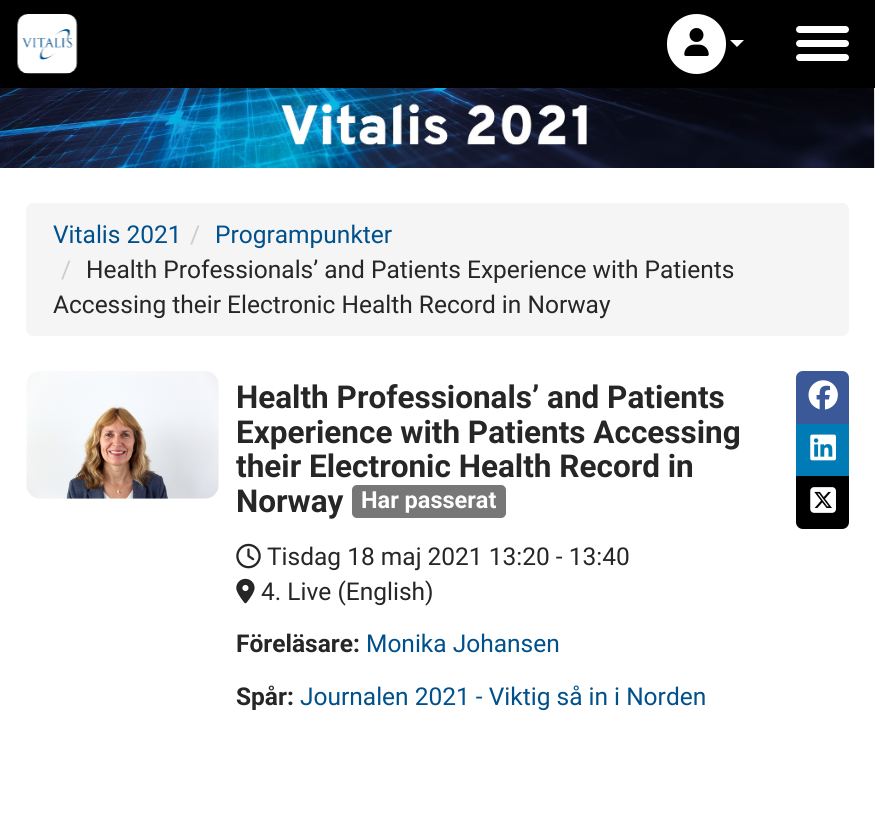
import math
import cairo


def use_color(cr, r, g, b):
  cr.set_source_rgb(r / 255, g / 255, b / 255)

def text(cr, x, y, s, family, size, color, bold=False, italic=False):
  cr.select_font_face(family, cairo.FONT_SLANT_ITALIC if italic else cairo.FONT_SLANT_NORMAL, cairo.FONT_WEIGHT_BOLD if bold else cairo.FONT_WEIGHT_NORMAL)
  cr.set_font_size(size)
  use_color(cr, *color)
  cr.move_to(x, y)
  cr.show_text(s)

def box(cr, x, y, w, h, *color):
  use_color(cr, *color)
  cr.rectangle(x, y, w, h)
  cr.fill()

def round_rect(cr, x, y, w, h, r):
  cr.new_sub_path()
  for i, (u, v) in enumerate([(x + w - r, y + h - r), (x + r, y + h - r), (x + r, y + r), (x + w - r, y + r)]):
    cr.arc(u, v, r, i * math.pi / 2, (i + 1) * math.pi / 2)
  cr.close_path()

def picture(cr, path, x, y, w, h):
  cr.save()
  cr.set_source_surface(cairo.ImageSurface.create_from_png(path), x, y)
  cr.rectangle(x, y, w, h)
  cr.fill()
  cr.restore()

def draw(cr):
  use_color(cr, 255, 255, 255)
  cr.paint()
  box(cr, 0, 0, 875, 88, 0, 0, 0)
  picture(cr, "img_01.png", 17, 14, 61, 60)
  use_color(cr, 255, 255, 255)
  round_rect(cr, 667, 14, 59, 60, 29.5)
  cr.fill()
  picture(cr, "img_02.png", 684, 28, 25, 28)
  cr.new_path()
  cr.move_to(730, 40)
  cr.line_to(744, 40)
  cr.line_to(737, 47)
  cr.close_path()
  cr.fill()
  round_rect(cr, 796, 26, 53, 7, 3.5)
  cr.fill()
  round_rect(cr, 796, 40, 53, 7, 3.5)
  cr.fill()
  round_rect(cr, 796, 54, 53, 7, 3.5)
  cr.fill()
  picture(cr, "img_03.png", 0, 88, 875, 80)
  use_color(cr, 245, 245, 245)
  round_rect(cr, 26, 203, 823, 133, 7)
  cr.fill()
  picture(cr, "img_04.png", 26, 371, 193, 128)
  use_color(cr, 119, 119, 119)
  round_rect(cr, 352, 485, 154, 33, 5)
  cr.fill()
  use_color(cr, 59, 89, 152)
  cr.new_path()
  cr.move_to(803, 371)
  cr.line_to(842, 371)
  cr.curve_to(846, 371, 849, 374, 849, 378)
  cr.line_to(849, 424)
  cr.line_to(796, 424)
  cr.line_to(796, 378)
  cr.curve_to(796, 374, 799, 371, 803, 371)
  cr.close_path()
  cr.fill()
  picture(cr, "img_05.png", 808, 380, 30, 30)
  box(cr, 796, 424, 53, 52, 0, 123, 182)
  picture(cr, "img_06.png", 810, 434, 26, 27)
  use_color(cr, 0, 0, 0)
  cr.new_path()
  cr.move_to(796, 476)
  cr.line_to(849, 476)
  cr.line_to(849, 522)
  cr.curve_to(849, 526, 846, 529, 842, 529)
  cr.line_to(803, 529)
  cr.curve_to(799, 529, 796, 526, 796, 522)
  cr.close_path()
  cr.fill()
  picture(cr, "img_07.png", 810, 487, 26, 26)
  picture(cr, "img_08.png", 236, 543, 25, 26)
  picture(cr, "img_09.png", 236, 578, 19, 26)
  text(cr, 53, 243, "Vitalis 2021", "Roboto", 24.5, (0, 80, 139))
  text(cr, 190, 243, "/", "Roboto", 24.5, (204, 204, 204))
  text(cr, 215, 243, "Programpunkter", "Roboto", 24.5, (0, 80, 139))
  text(cr, 61, 278, "/", "Roboto", 24.5, (204, 204, 204))
  text(cr, 86, 278, "Health Professionals’ and Patients Experience with Patients", "Roboto", 24.5, (38, 38, 38))
  text(cr, 53, 313, "Accessing their Electronic Health Record in Norway", "Roboto", 24.5, (38, 38, 38))
  text(cr, 236, 408, "Health Professionals’ and Patients", "Roboto", 31.5, (38, 38, 38), bold=True)
  text(cr, 236, 443, "Experience with Patients Accessing", "Roboto", 31.5, (38, 38, 38), bold=True)
  text(cr, 236, 477, "their Electronic Health Record in", "Roboto", 31.5, (38, 38, 38), bold=True)
  text(cr, 236, 512, "Norway", "Roboto", 31.5, (38, 38, 38), bold=True)
  text(cr, 361, 508, "Har passerat", "Roboto", 23.5, (255, 255, 255), bold=True)
  text(cr, 267, 565, "Tisdag 18 maj 2021 13:20 - 13:40", "Roboto", 24.5, (38, 38, 38))
  text(cr, 261, 600, "4. Live (English)", "Roboto", 24.5, (38, 38, 38))
  text(cr, 236, 652, "Föreläsare:", "Roboto", 24.5, (38, 38, 38), bold=True)
  text(cr, 366, 652, "Monika Johansen", "Roboto", 24.5, (0, 80, 139))
  text(cr, 236, 705, "Spår:", "Roboto", 24.5, (38, 38, 38), bold=True)
  text(cr, 300, 705, "Journalen 2021 - Viktig så in i Norden", "Roboto", 24.5, (0, 80, 139))


surface = cairo.ImageSurface(cairo.FORMAT_RGB24, 875, 837)
cr = cairo.Context(surface)
options = cairo.FontOptions()
options.set_hint_metrics(cairo.HINT_METRICS_OFF)
options.set_hint_style(cairo.HINT_STYLE_NONE)
cr.set_font_options(options)
cr.set_miter_limit(4)
draw(cr)
surface.write_to_png("out.png")
